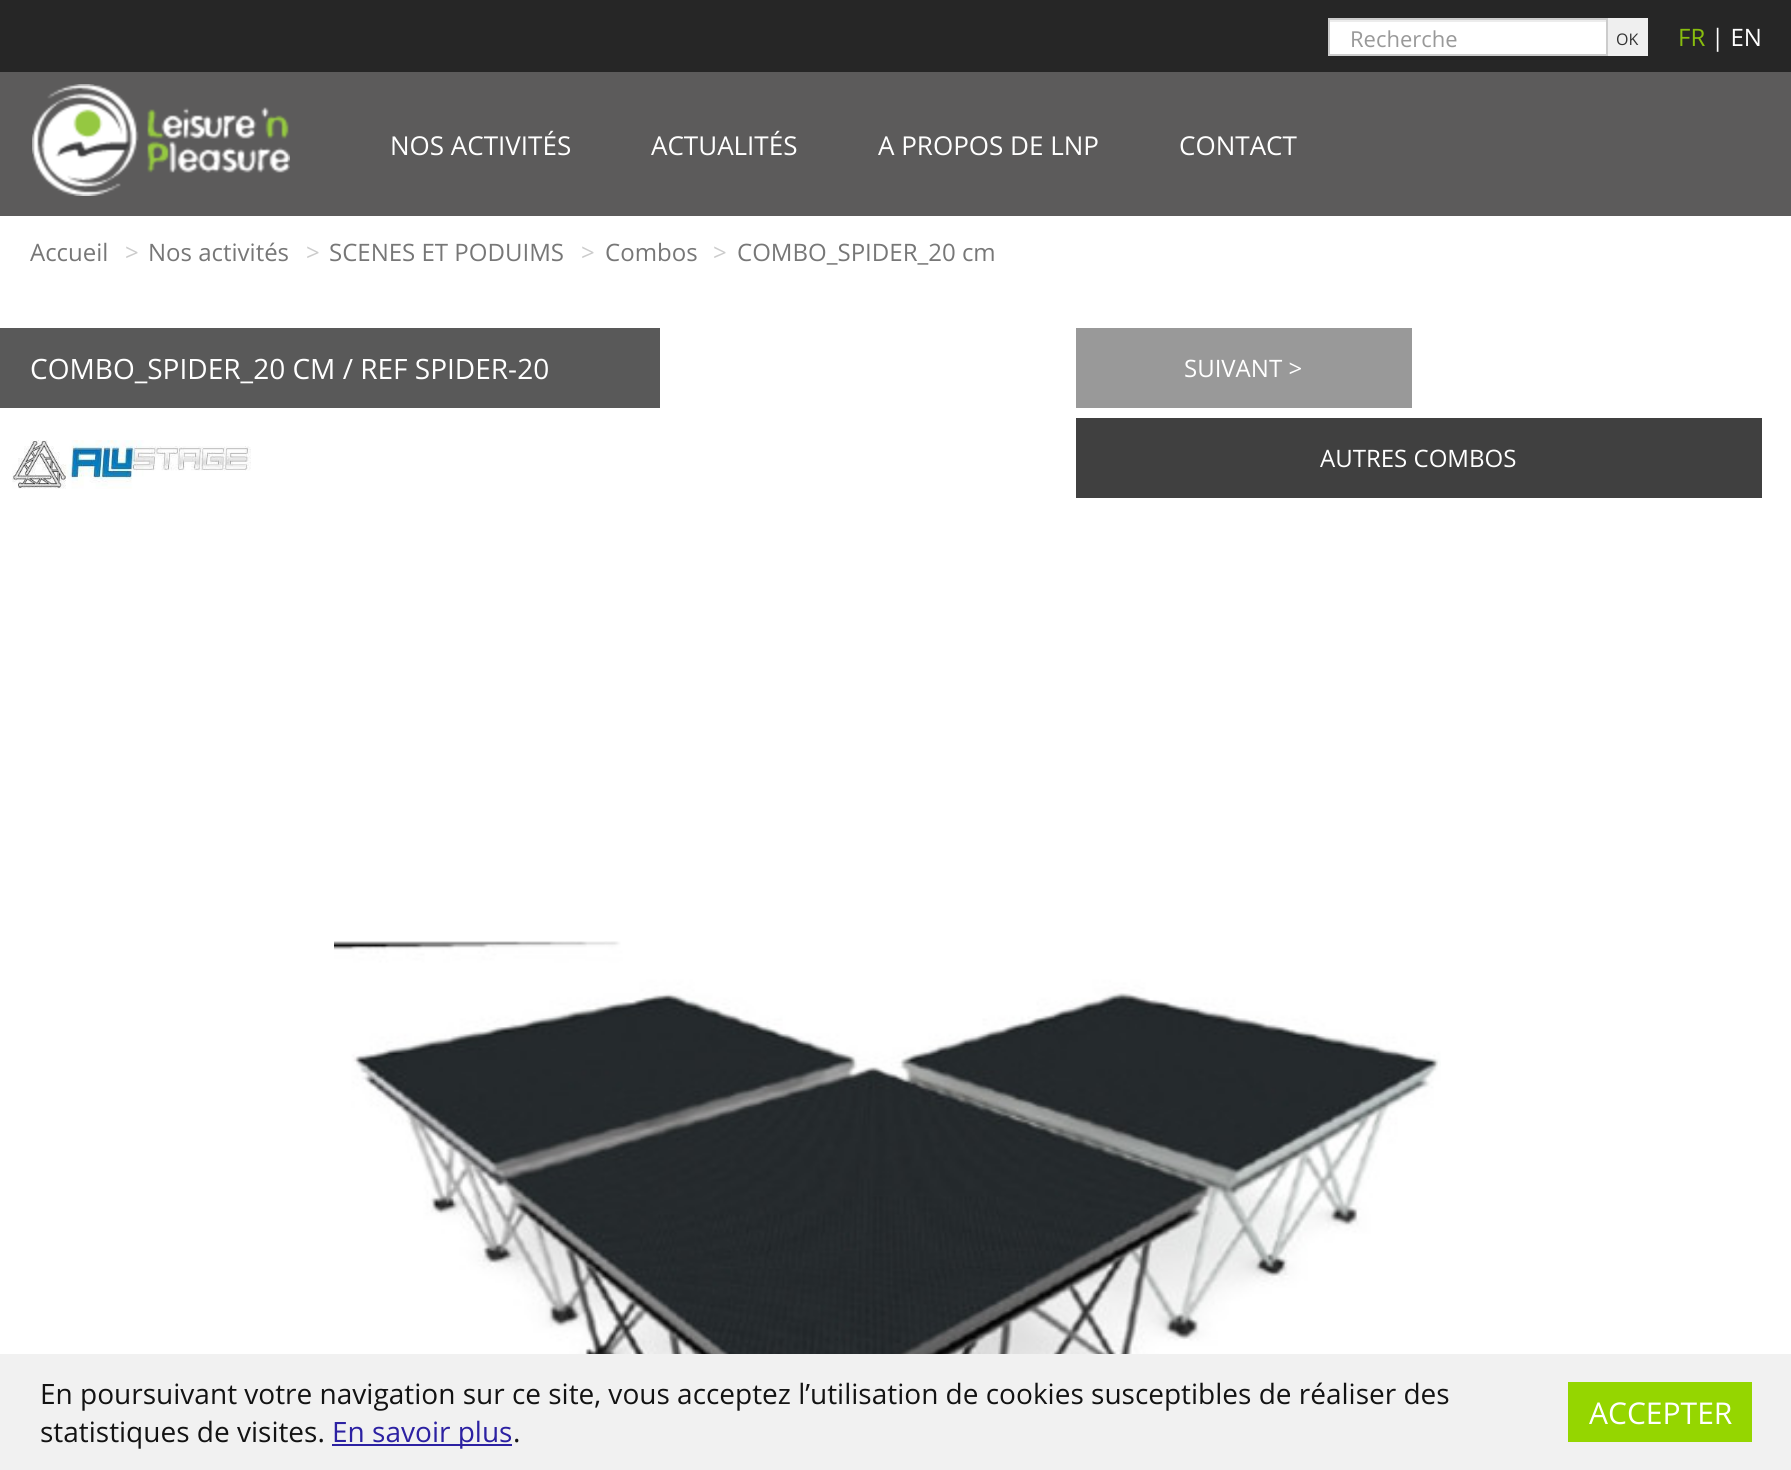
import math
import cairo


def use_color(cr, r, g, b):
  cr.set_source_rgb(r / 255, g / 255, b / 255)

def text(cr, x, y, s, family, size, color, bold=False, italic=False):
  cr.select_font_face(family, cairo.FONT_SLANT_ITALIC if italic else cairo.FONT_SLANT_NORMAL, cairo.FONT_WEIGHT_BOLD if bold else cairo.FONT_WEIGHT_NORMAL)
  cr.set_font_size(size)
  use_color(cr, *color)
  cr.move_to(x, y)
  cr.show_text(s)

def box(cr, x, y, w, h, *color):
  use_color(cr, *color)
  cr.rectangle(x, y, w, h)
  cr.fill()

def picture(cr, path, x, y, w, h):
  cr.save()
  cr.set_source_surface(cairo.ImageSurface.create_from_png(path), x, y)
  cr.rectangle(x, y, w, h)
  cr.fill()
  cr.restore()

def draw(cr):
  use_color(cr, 255, 255, 255)
  cr.paint()
  box(cr, 0, 0, 1791, 72, 38, 38, 38)
  box(cr, 1330, 22, 276, 32, 255, 255, 255)
  box(cr, 1330, 20, 276, 2, 236, 236, 236)
  cr.rectangle(1329, 19, 278, 36)
  use_color(cr, 204, 204, 204)
  cr.stroke()
  box(cr, 1608, 18, 40, 38, 239, 239, 239)
  box(cr, 0, 72, 1791, 144, 92, 91, 91)
  picture(cr, "img_01.png", 32, 84, 258, 112)
  box(cr, 0, 328, 660, 80, 89, 89, 89)
  picture(cr, "img_02.png", 12, 440, 239, 49)
  box(cr, 1076, 328, 336, 80, 153, 153, 153)
  box(cr, 1076, 418, 686, 80, 64, 64, 64)
  picture(cr, "img_03.png", 334, 941, 1107, 413)
  box(cr, 0, 1354, 1791, 116, 241, 241, 241)
  box(cr, 332, 1444, 180, 2, 44, 33, 162)
  box(cr, 1568, 1382, 184, 60, 149, 214, 0)
  text(cr, 1350, 47, "Recherche", "Open Sans", 22, (153, 153, 153))
  text(cr, 1616, 45, "OK", "Open Sans", 16, (51, 51, 51))
  text(cr, 1678, 46, "FR", "Open Sans", 24, (136, 189, 14))
  text(cr, 1711, 46, "| EN", "Open Sans", 24, (255, 255, 255))
  text(cr, 390, 155, "NOS ACTIVITÉS", "Open Sans", 26, (255, 255, 255))
  text(cr, 651, 155, "ACTUALITÉS", "Open Sans", 26, (255, 255, 255))
  text(cr, 878, 155, "A PROPOS DE LNP", "Open Sans", 26, (255, 255, 255))
  text(cr, 1179, 155, "CONTACT", "Open Sans", 26, (255, 255, 255))
  text(cr, 30, 261, "Accueil", "Open Sans", 24, (119, 119, 119))
  text(cr, 125, 261, ">", "Open Sans", 24, (204, 204, 204))
  text(cr, 148, 261, "Nos activités", "Open Sans", 24, (119, 119, 119))
  text(cr, 306, 261, ">", "Open Sans", 24, (204, 204, 204))
  text(cr, 329, 261, "SCENES ET PODUIMS", "Open Sans", 24, (119, 119, 119))
  text(cr, 581, 261, ">", "Open Sans", 24, (204, 204, 204))
  text(cr, 605, 261, "Combos", "Open Sans", 24, (119, 119, 119))
  text(cr, 713, 261, ">", "Open Sans", 24, (204, 204, 204))
  text(cr, 737, 261, "COMBO_SPIDER_20 cm", "Open Sans", 24, (119, 119, 119))
  text(cr, 30, 379, "COMBO_SPIDER_20 CM / REF SPIDER-20", "Open Sans", 28, (255, 255, 255))
  text(cr, 1184, 377, "SUIVANT >", "Open Sans", 24, (255, 255, 255))
  text(cr, 1320, 467, "AUTRES COMBOS", "Open Sans", 24, (255, 255, 255))
  text(cr, 40, 1404, "En poursuivant votre navigation sur ce site, vous acceptez l’utilisation de cookies susceptibles de réaliser des", "Open Sans", 28, (19, 19, 19))
  text(cr, 40, 1442, "statistiques de visites.", "Open Sans", 28, (19, 19, 19))
  text(cr, 332, 1442, "En savoir plus", "Open Sans", 28, (44, 33, 162))
  text(cr, 513, 1442, ".", "Open Sans", 28, (19, 19, 19))
  text(cr, 1589, 1424, "ACCEPTER", "Open Sans", 30, (255, 255, 255))


surface = cairo.ImageSurface(cairo.FORMAT_RGB24, 1791, 1470)
cr = cairo.Context(surface)
options = cairo.FontOptions()
options.set_hint_metrics(cairo.HINT_METRICS_OFF)
options.set_hint_style(cairo.HINT_STYLE_NONE)
cr.set_font_options(options)
cr.set_miter_limit(4)
draw(cr)
surface.write_to_png("out.png")
